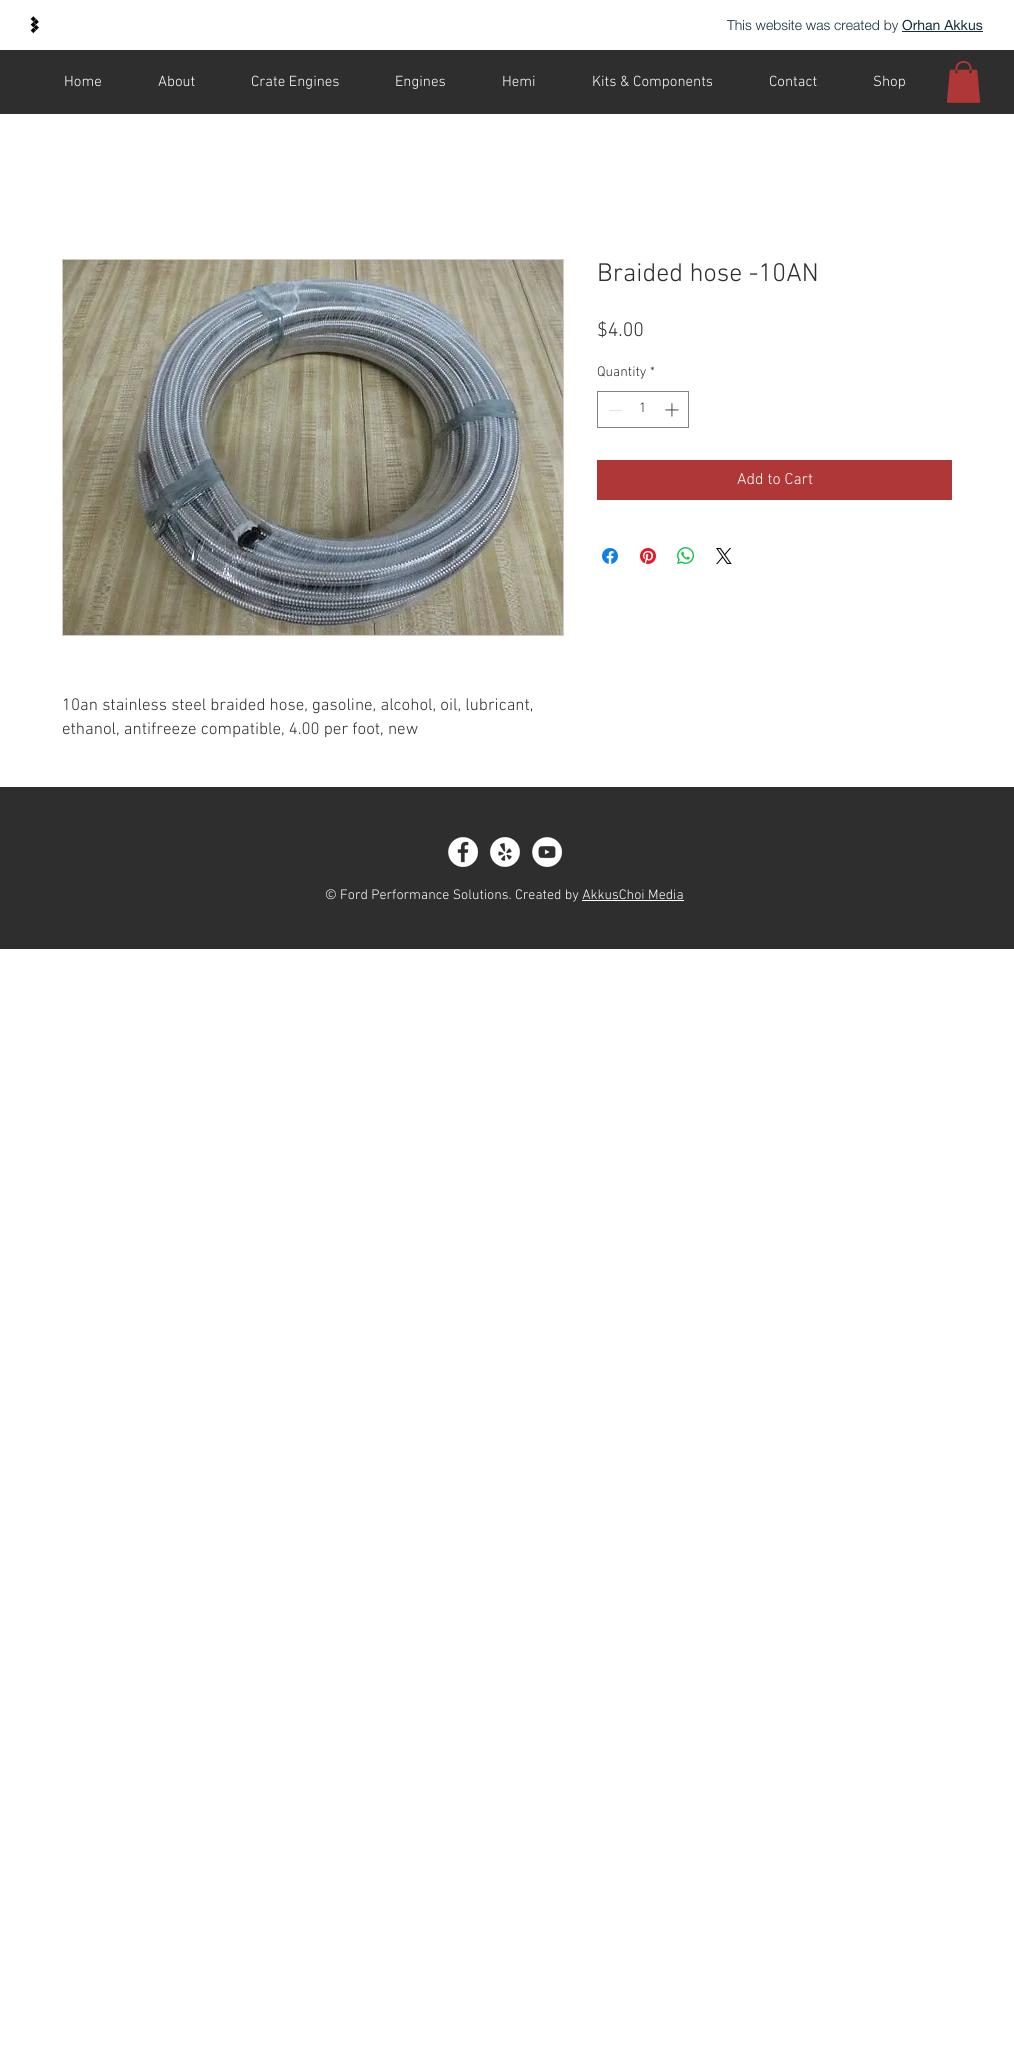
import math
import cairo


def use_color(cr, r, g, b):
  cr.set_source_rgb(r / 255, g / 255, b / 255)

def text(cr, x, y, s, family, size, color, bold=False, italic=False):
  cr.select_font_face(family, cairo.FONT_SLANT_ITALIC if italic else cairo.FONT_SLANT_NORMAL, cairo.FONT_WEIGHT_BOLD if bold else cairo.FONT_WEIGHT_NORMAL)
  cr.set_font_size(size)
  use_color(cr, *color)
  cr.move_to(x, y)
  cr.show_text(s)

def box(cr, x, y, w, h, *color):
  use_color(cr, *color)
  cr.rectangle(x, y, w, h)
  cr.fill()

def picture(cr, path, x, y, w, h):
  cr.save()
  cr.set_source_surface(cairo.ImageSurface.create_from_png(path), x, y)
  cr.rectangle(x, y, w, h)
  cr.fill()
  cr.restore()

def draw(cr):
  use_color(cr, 255, 255, 255)
  cr.paint()
  picture(cr, "img_01.png", 30, 16, 9, 18)
  box(cr, 902, 31, 81, 1, 22, 45, 61)
  box(cr, 0, 50, 1014, 64, 47, 46, 46)
  picture(cr, "img_02.png", 946, 61, 35, 42)
  cr.rectangle(597.5, 391.5, 91, 36)
  use_color(cr, 130, 130, 130)
  cr.set_line_width(1)
  cr.stroke()
  box(cr, 609, 410, 13, 1, 227, 227, 227)
  picture(cr, "img_03.png", 665, 403, 14, 14)
  box(cr, 597, 460, 355, 40, 176, 55, 55)
  picture(cr, "img_04.png", 602, 548, 16, 16)
  picture(cr, "img_05.png", 640, 548, 16, 16)
  picture(cr, "img_06.png", 677, 547, 17, 17)
  picture(cr, "img_07.png", 716, 548, 16, 16)
  cr.rectangle(62.5, 259.5, 501, 376)
  use_color(cr, 209, 202, 201)
  cr.stroke()
  picture(cr, "img_08.png", 63, 260, 500, 375)
  box(cr, 0, 787, 1014, 162, 47, 46, 46)
  picture(cr, "img_09.png", 448, 837, 30, 30)
  picture(cr, "img_10.png", 490, 837, 30, 30)
  picture(cr, "img_11.png", 532, 837, 30, 30)
  box(cr, 582, 900, 102, 1, 255, 255, 255)
  text(cr, 727, 30, "This website was created by", "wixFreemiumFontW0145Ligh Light", 14, (22, 45, 61))
  text(cr, 902, 30, "Orhan Akkus", "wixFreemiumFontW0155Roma", 14, (22, 45, 61))
  text(cr, 64, 86, "Home", "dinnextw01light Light", 15, (255, 255, 255))
  text(cr, 158, 86, "About", "dinnextw01light Light", 15, (255, 255, 255))
  text(cr, 251, 86, "Crate Engines", "dinnextw01light Light", 15, (255, 255, 255))
  text(cr, 395, 86, "Engines", "dinnextw01light Light", 15, (255, 255, 255))
  text(cr, 502, 86, "Hemi", "dinnextw01light Light", 15, (255, 255, 255))
  text(cr, 592, 86, "Kits & Components", "dinnextw01light Light", 15, (255, 255, 255))
  text(cr, 769, 86, "Contact", "dinnextw01light Light", 15, (255, 255, 255))
  text(cr, 873, 86, "Shop", "dinnextw01light Light", 15, (255, 255, 255))
  text(cr, 597, 281, "Braided hose -10AN", "dinnextw01light Light", 26, (47, 46, 46))
  text(cr, 597, 336, "$4.00", "dinnextw01light Light", 20, (47, 46, 46))
  text(cr, 597, 376, "Quantity", "dinnextw01light Light", 14, (47, 46, 46))
  text(cr, 650, 376, "*", "dinnextw01light Light", 14, (47, 46, 46))
  text(cr, 639, 412, "1", "dinnextw01light Light", 14, (47, 46, 46))
  text(cr, 737, 484, "Add to Cart", "dinnextw01light Light", 16, (255, 255, 255))
  text(cr, 62, 710, "10an stainless steel braided hose, gasoline, alcohol, oil, lubricant,", "dinnextw01light Light", 17, (47, 46, 46))
  text(cr, 62, 734, "ethanol, antifreeze compatible, 4.00 per foot, new", "dinnextw01light Light", 17, (47, 46, 46))
  text(cr, 325, 899, "© Ford Performance Solutions. Created by AkkusChoi Media", "dinnextw01light Light", 14, (255, 255, 255))


surface = cairo.ImageSurface(cairo.FORMAT_RGB24, 1014, 2063)
cr = cairo.Context(surface)
options = cairo.FontOptions()
options.set_hint_metrics(cairo.HINT_METRICS_OFF)
options.set_hint_style(cairo.HINT_STYLE_NONE)
cr.set_font_options(options)
cr.set_miter_limit(4)
draw(cr)
surface.write_to_png("out.png")
